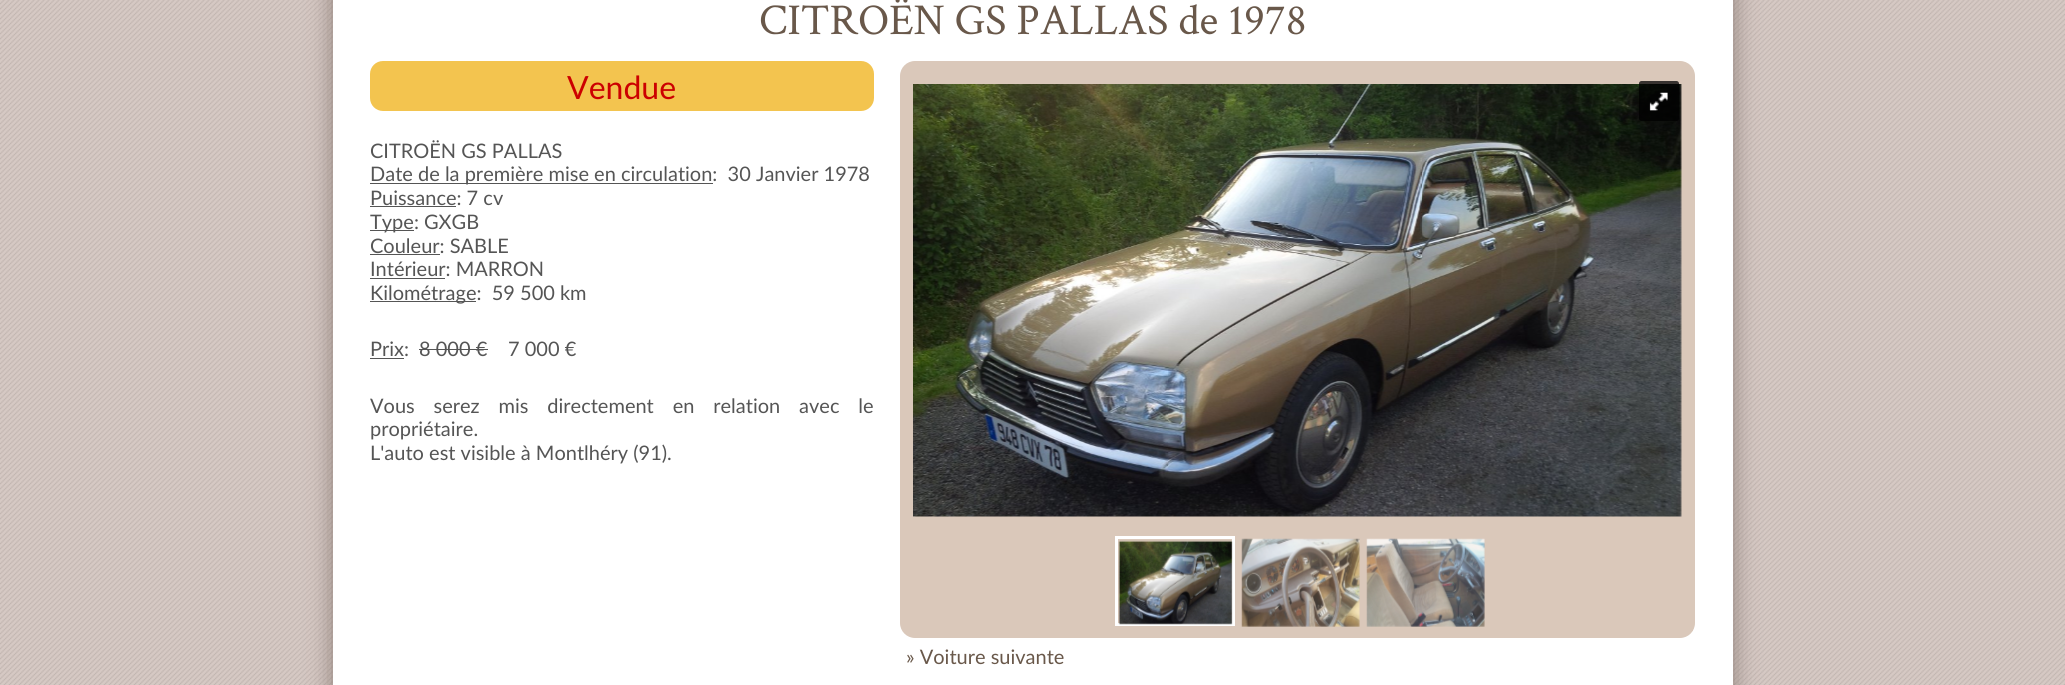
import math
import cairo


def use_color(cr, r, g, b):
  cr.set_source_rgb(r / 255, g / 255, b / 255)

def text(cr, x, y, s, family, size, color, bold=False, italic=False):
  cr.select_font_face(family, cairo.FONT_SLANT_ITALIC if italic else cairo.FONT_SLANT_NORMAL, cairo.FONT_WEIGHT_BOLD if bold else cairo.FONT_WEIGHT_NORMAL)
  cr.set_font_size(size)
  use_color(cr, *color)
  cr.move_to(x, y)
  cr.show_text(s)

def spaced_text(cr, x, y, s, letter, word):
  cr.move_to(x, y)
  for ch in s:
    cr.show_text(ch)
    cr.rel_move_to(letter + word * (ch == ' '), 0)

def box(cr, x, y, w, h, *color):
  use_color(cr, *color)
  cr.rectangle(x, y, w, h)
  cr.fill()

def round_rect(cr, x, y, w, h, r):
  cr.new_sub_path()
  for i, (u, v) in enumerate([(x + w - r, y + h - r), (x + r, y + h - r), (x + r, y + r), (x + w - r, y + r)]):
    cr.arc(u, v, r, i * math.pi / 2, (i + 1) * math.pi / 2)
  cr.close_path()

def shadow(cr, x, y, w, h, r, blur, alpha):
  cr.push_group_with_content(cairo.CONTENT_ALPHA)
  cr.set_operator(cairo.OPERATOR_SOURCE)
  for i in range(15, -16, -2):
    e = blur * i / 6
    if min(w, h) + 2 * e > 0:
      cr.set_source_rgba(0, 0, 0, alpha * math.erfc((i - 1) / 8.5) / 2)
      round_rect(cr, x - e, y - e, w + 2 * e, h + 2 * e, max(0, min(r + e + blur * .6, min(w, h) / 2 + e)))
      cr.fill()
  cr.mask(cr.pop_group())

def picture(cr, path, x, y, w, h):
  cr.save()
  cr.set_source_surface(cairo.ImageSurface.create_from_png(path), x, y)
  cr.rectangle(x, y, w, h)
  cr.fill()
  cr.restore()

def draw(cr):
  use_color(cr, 255, 255, 255)
  cr.paint()
  picture(cr, "img_01.png", 0, 0, 2065, 685)
  use_color(cr, 140, 124, 118)
  shadow(cr, 333, -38, 1400, 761, 0, 12.5, 1)
  box(cr, 333, 0, 1400, 685, 255, 255, 255)
  use_color(cr, 243, 196, 79)
  round_rect(cr, 370, 61, 504, 50, 13)
  cr.fill()
  box(cr, 370, 183, 343, 1, 85, 85, 85)
  box(cr, 370, 206, 86, 1, 85, 85, 85)
  box(cr, 370, 230, 44, 1, 85, 85, 85)
  box(cr, 370, 254, 70, 1, 85, 85, 85)
  box(cr, 370, 278, 75, 1, 85, 85, 85)
  box(cr, 370, 301, 106, 1, 85, 85, 85)
  box(cr, 370, 358, 34, 1, 85, 85, 85)
  box(cr, 419, 349, 69, 1, 85, 85, 85)
  use_color(cr, 218, 200, 186)
  round_rect(cr, 900, 61, 795, 577, 15)
  cr.fill()
  picture(cr, "img_03.png", 913, 84, 769, 433)
  cr.set_source_rgba(0, 0, 0, 0.75)
  round_rect(cr, 1639, 81, 40, 40, 2.5)
  cr.fill()
  picture(cr, "img_02.png", 1649, 92, 19, 19)
  box(cr, 1692, 630, 1, 1, 218, 200, 186)
  cr.rectangle(1116.5, 537.5, 117, 87)
  use_color(cr, 255, 255, 255)
  cr.set_line_width(3)
  cr.stroke()
  picture(cr, "img_04.png", 1118, 540, 115, 85)
  picture(cr, "img_05.png", 1241, 538, 119, 89)
  picture(cr, "img_06.png", 1366, 538, 119, 89)
  text(cr, 759, 34, "CITROËN GS PALLAS de 1978", "Crimson Text", 44, (105, 88, 74))
  text(cr, 567, 99, "Vendue", "Lato", 32, (204, 0, 0))
  text(cr, 370, 158, "CITROËN GS PALLAS", "Lato", 20, (85, 85, 85))
  text(cr, 370, 181, "Date de la première mise en circulation:  30 Janvier 1978", "Lato", 20, (85, 85, 85))
  text(cr, 370, 205, "Puissance: 7 cv", "Lato", 20, (85, 85, 85))
  text(cr, 370, 229, "Type: GXGB", "Lato", 20, (85, 85, 85))
  text(cr, 370, 253, "Couleur: SABLE", "Lato", 20, (85, 85, 85))
  text(cr, 370, 276, "Intérieur: MARRON", "Lato", 20, (85, 85, 85))
  text(cr, 370, 300, "Kilométrage:  59 500 km", "Lato", 20, (85, 85, 85))
  text(cr, 370, 356, "Prix:", "Lato", 20, (85, 85, 85))
  text(cr, 419, 356, "8 000 €", "Lato", 20, (85, 85, 85))
  text(cr, 508, 356, "7 000 €", "Lato", 20, (85, 85, 85))
  spaced_text(cr, 370, 413, "Vous serez mis directement en relation avec le", 0, 13.75)
  text(cr, 370, 436, "propriétaire.", "Lato", 20, (85, 85, 85))
  text(cr, 370, 460, "L'auto est visible à Montlhéry (91).", "Lato", 20, (85, 85, 85))
  text(cr, 906, 664, "» Voiture suivante", "Lato", 20, (105, 88, 74))


surface = cairo.ImageSurface(cairo.FORMAT_RGB24, 2065, 685)
cr = cairo.Context(surface)
options = cairo.FontOptions()
options.set_hint_metrics(cairo.HINT_METRICS_OFF)
options.set_hint_style(cairo.HINT_STYLE_NONE)
cr.set_font_options(options)
cr.set_miter_limit(4)
draw(cr)
surface.write_to_png("out.png")
